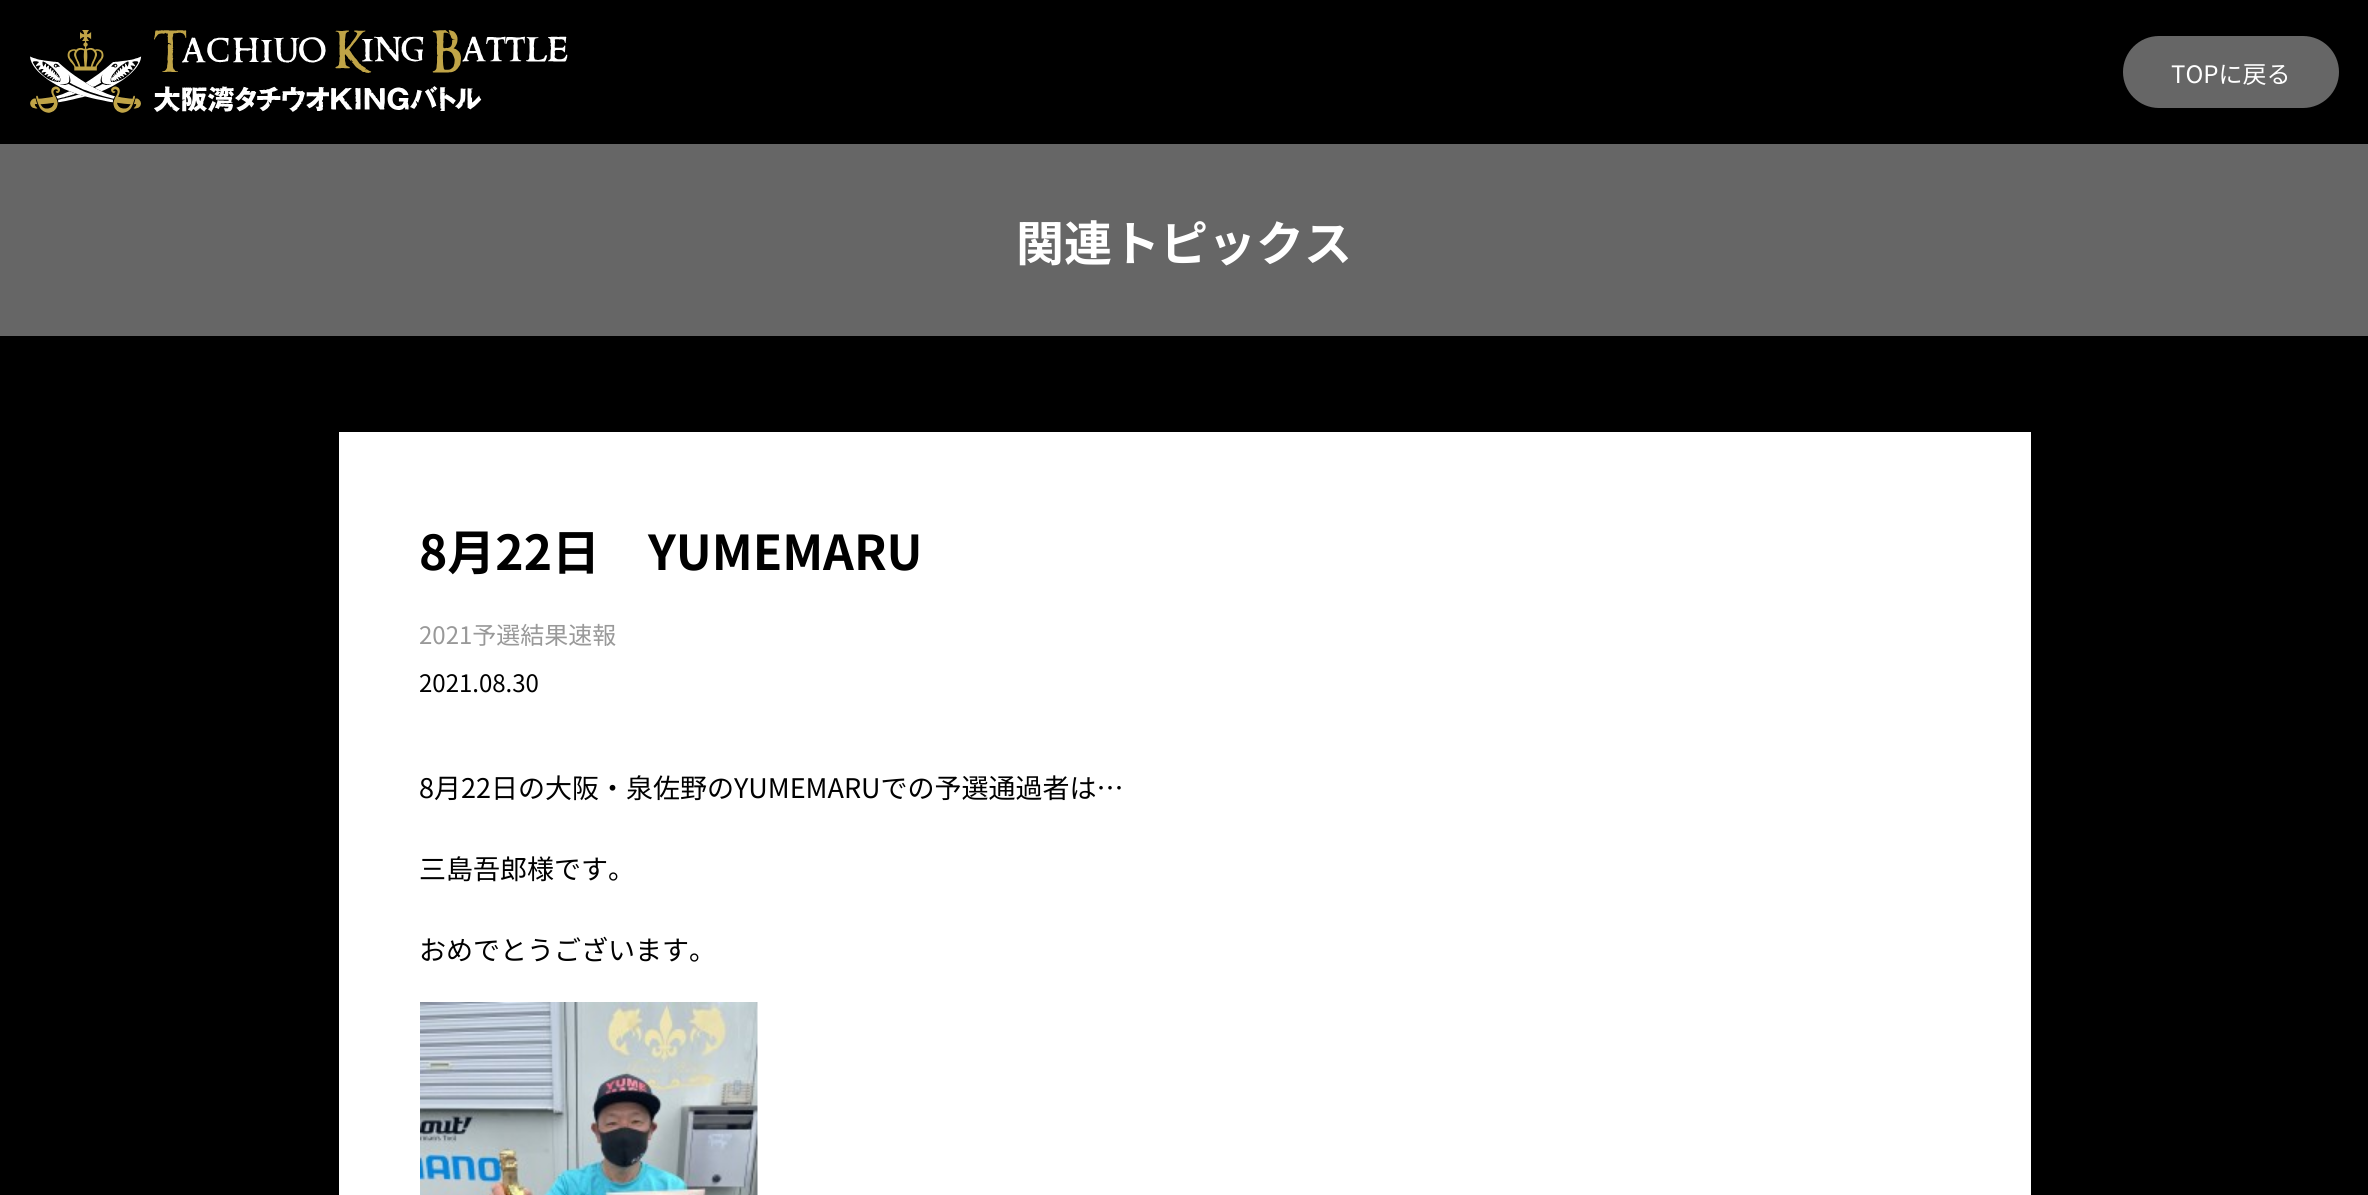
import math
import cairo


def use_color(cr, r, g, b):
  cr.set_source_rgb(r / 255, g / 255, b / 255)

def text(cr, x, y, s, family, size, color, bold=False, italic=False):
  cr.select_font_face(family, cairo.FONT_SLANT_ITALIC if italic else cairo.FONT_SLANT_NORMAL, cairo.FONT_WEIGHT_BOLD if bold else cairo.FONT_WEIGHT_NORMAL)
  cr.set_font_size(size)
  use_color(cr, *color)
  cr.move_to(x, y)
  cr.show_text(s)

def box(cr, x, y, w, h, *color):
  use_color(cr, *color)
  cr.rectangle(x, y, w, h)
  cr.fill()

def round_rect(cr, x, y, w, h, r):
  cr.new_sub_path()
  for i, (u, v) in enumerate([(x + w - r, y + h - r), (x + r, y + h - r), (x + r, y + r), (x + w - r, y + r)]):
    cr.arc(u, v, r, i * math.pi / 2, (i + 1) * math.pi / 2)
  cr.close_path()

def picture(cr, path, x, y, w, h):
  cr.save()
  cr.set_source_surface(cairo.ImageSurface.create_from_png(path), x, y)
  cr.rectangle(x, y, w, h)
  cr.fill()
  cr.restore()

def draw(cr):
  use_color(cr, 0, 0, 0)
  cr.paint()
  picture(cr, "img_01.png", 30, 30, 538, 83)
  use_color(cr, 102, 102, 102)
  round_rect(cr, 2123, 36, 216, 72, 36)
  cr.fill()
  box(cr, 0, 144, 2368, 192, 102, 102, 102)
  box(cr, 339, 432, 1692, 763, 255, 255, 255)
  picture(cr, "img_02.png", 420, 1002, 338, 193)
  text(cr, 2171, 83, "TOPに戻る", "Noto Sans JP", 24, (255, 255, 255))
  text(cr, 1016, 261, "関連トピックス", "Noto Sans JP", 48, (255, 255, 255), bold=True)
  text(cr, 419, 570, "8月22日　YUMEMARU", "Noto Sans JP", 48, (0, 0, 0), bold=True)
  text(cr, 419, 644, "2021予選結果速報", "Noto Sans JP", 24, (153, 153, 153))
  text(cr, 419, 692, "2021.08.30", "Noto Sans JP", 24, (0, 0, 0))
  text(cr, 419, 798, "8月22日の大阪・泉佐野のYUMEMARUでの予選通過者は…", "Noto Sans JP", 27, (0, 0, 0))
  text(cr, 419, 879, "三島吾郎様です。", "Noto Sans JP", 27, (0, 0, 0))
  text(cr, 419, 960, "おめでとうございます。", "Noto Sans JP", 27, (0, 0, 0))


surface = cairo.ImageSurface(cairo.FORMAT_RGB24, 2368, 1195)
cr = cairo.Context(surface)
options = cairo.FontOptions()
options.set_hint_metrics(cairo.HINT_METRICS_OFF)
options.set_hint_style(cairo.HINT_STYLE_NONE)
cr.set_font_options(options)
cr.set_miter_limit(4)
draw(cr)
surface.write_to_png("out.png")
